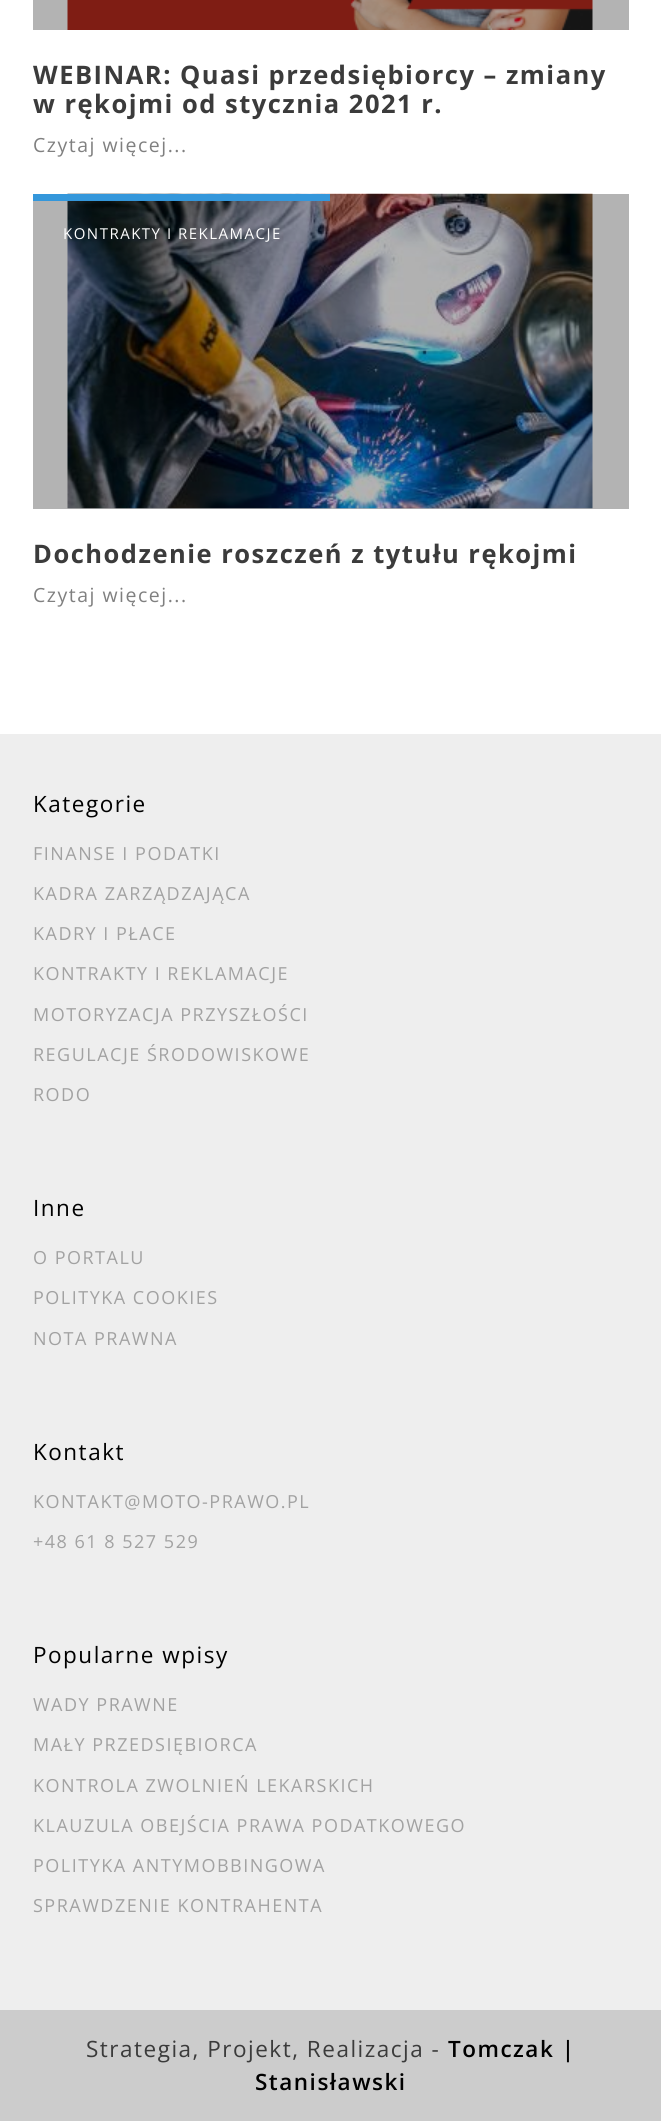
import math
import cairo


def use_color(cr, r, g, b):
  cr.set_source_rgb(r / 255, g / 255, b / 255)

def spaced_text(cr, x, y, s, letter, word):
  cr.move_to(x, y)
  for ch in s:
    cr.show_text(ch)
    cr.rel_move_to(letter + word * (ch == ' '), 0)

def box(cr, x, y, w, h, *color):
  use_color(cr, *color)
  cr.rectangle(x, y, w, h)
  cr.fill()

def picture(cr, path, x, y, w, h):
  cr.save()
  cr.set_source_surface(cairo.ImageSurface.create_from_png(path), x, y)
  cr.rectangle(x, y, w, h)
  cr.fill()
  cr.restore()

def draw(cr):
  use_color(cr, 255, 255, 255)
  cr.paint()
  box(cr, 33, 194, 596, 315, 179, 179, 179)
  box(cr, 33, 0, 596, 30, 179, 179, 179)
  picture(cr, "img_01.png", 67, 0, 526, 30)
  picture(cr, "img_02.png", 67, 193, 526, 316)
  box(cr, 33, 194, 297, 7, 52, 151, 219)
  box(cr, 0, 734, 661, 1276, 238, 238, 238)
  box(cr, 0, 2010, 661, 111, 204, 204, 204)
  cr.select_font_face("Open Sans", cairo.FONT_SLANT_NORMAL, cairo.FONT_WEIGHT_BOLD)
  cr.set_font_size(25.5)
  use_color(cr, 59, 59, 59)
  spaced_text(cr, 33, 84, "WEBINAR: Quasi przedsiębiorcy – zmiany", 1.5, 0)
  spaced_text(cr, 33, 113, "w rękojmi od stycznia 2021 r.", 1.5, 0)
  cr.select_font_face("Open Sans")
  cr.set_font_size(19.5)
  use_color(cr, 128, 128, 128)
  spaced_text(cr, 33, 152, "Czytaj więcej...", 1.5, 0)
  cr.set_font_size(15)
  use_color(cr, 255, 255, 255)
  spaced_text(cr, 63, 239, "KONTRAKTY I REKLAMACJE", 1.5, 0)
  cr.select_font_face("Open Sans", cairo.FONT_SLANT_NORMAL, cairo.FONT_WEIGHT_BOLD)
  cr.set_font_size(25.5)
  use_color(cr, 59, 59, 59)
  spaced_text(cr, 33, 563, "Dochodzenie roszczeń z tytułu rękojmi", 1.5, 0)
  cr.select_font_face("Open Sans")
  cr.set_font_size(19.5)
  use_color(cr, 128, 128, 128)
  spaced_text(cr, 33, 602, "Czytaj więcej...", 1.5, 0)
  cr.set_font_size(22.5)
  use_color(cr, 0, 0, 0)
  spaced_text(cr, 33, 812, "Kategorie", 1.5, 0)
  cr.set_font_size(18)
  use_color(cr, 162, 162, 162)
  spaced_text(cr, 33, 860, "FINANSE I PODATKI", 1.5, 0)
  spaced_text(cr, 33, 900, "KADRA ZARZĄDZAJĄCA", 1.5, 0)
  spaced_text(cr, 33, 940, "KADRY I PŁACE", 1.5, 0)
  spaced_text(cr, 33, 980, "KONTRAKTY I REKLAMACJE", 1.5, 0)
  spaced_text(cr, 33, 1021, "MOTORYZACJA PRZYSZŁOŚCI", 1.5, 0)
  spaced_text(cr, 33, 1061, "REGULACJE ŚRODOWISKOWE", 1.5, 0)
  spaced_text(cr, 33, 1101, "RODO", 1.5, 0)
  cr.set_font_size(22.5)
  use_color(cr, 0, 0, 0)
  spaced_text(cr, 33, 1216, "Inne", 1.5, 0)
  cr.set_font_size(18)
  use_color(cr, 162, 162, 162)
  spaced_text(cr, 33, 1264, "O PORTALU", 1.5, 0)
  spaced_text(cr, 33, 1304, "POLITYKA COOKIES", 1.5, 0)
  spaced_text(cr, 33, 1345, "NOTA PRAWNA", 1.5, 0)
  cr.set_font_size(22.5)
  use_color(cr, 0, 0, 0)
  spaced_text(cr, 33, 1460, "Kontakt", 1.5, 0)
  cr.set_font_size(18)
  use_color(cr, 162, 162, 162)
  spaced_text(cr, 33, 1508, "KONTAKT@MOTO-PRAWO.PL", 1.5, 0)
  spaced_text(cr, 33, 1548, "+48 61 8 527 529", 1.5, 0)
  cr.set_font_size(22.5)
  use_color(cr, 0, 0, 0)
  spaced_text(cr, 33, 1663, "Popularne wpisy", 1.5, 0)
  cr.set_font_size(18)
  use_color(cr, 162, 162, 162)
  spaced_text(cr, 33, 1711, "WADY PRAWNE", 1.5, 0)
  spaced_text(cr, 33, 1751, "MAŁY PRZEDSIĘBIORCA", 1.5, 0)
  spaced_text(cr, 33, 1792, "KONTROLA ZWOLNIEŃ LEKARSKICH", 1.5, 0)
  spaced_text(cr, 33, 1832, "KLAUZULA OBEJŚCIA PRAWA PODATKOWEGO", 1.5, 0)
  spaced_text(cr, 33, 1872, "POLITYKA ANTYMOBBINGOWA", 1.5, 0)
  spaced_text(cr, 33, 1912, "SPRAWDZENIE KONTRAHENTA", 1.5, 0)
  cr.set_font_size(22.5)
  use_color(cr, 59, 59, 59)
  spaced_text(cr, 86, 2057, "Strategia, Projekt, Realizacja -", 1.5, 0)
  cr.select_font_face("Open Sans SemiBold")
  use_color(cr, 0, 0, 0)
  spaced_text(cr, 448, 2057, "Tomczak |", 1.5, 0)
  spaced_text(cr, 255, 2090, "Stanisławski", 1.5, 0)


surface = cairo.ImageSurface(cairo.FORMAT_RGB24, 661, 2121)
cr = cairo.Context(surface)
options = cairo.FontOptions()
options.set_hint_metrics(cairo.HINT_METRICS_OFF)
options.set_hint_style(cairo.HINT_STYLE_NONE)
cr.set_font_options(options)
cr.set_miter_limit(4)
draw(cr)
surface.write_to_png("out.png")
